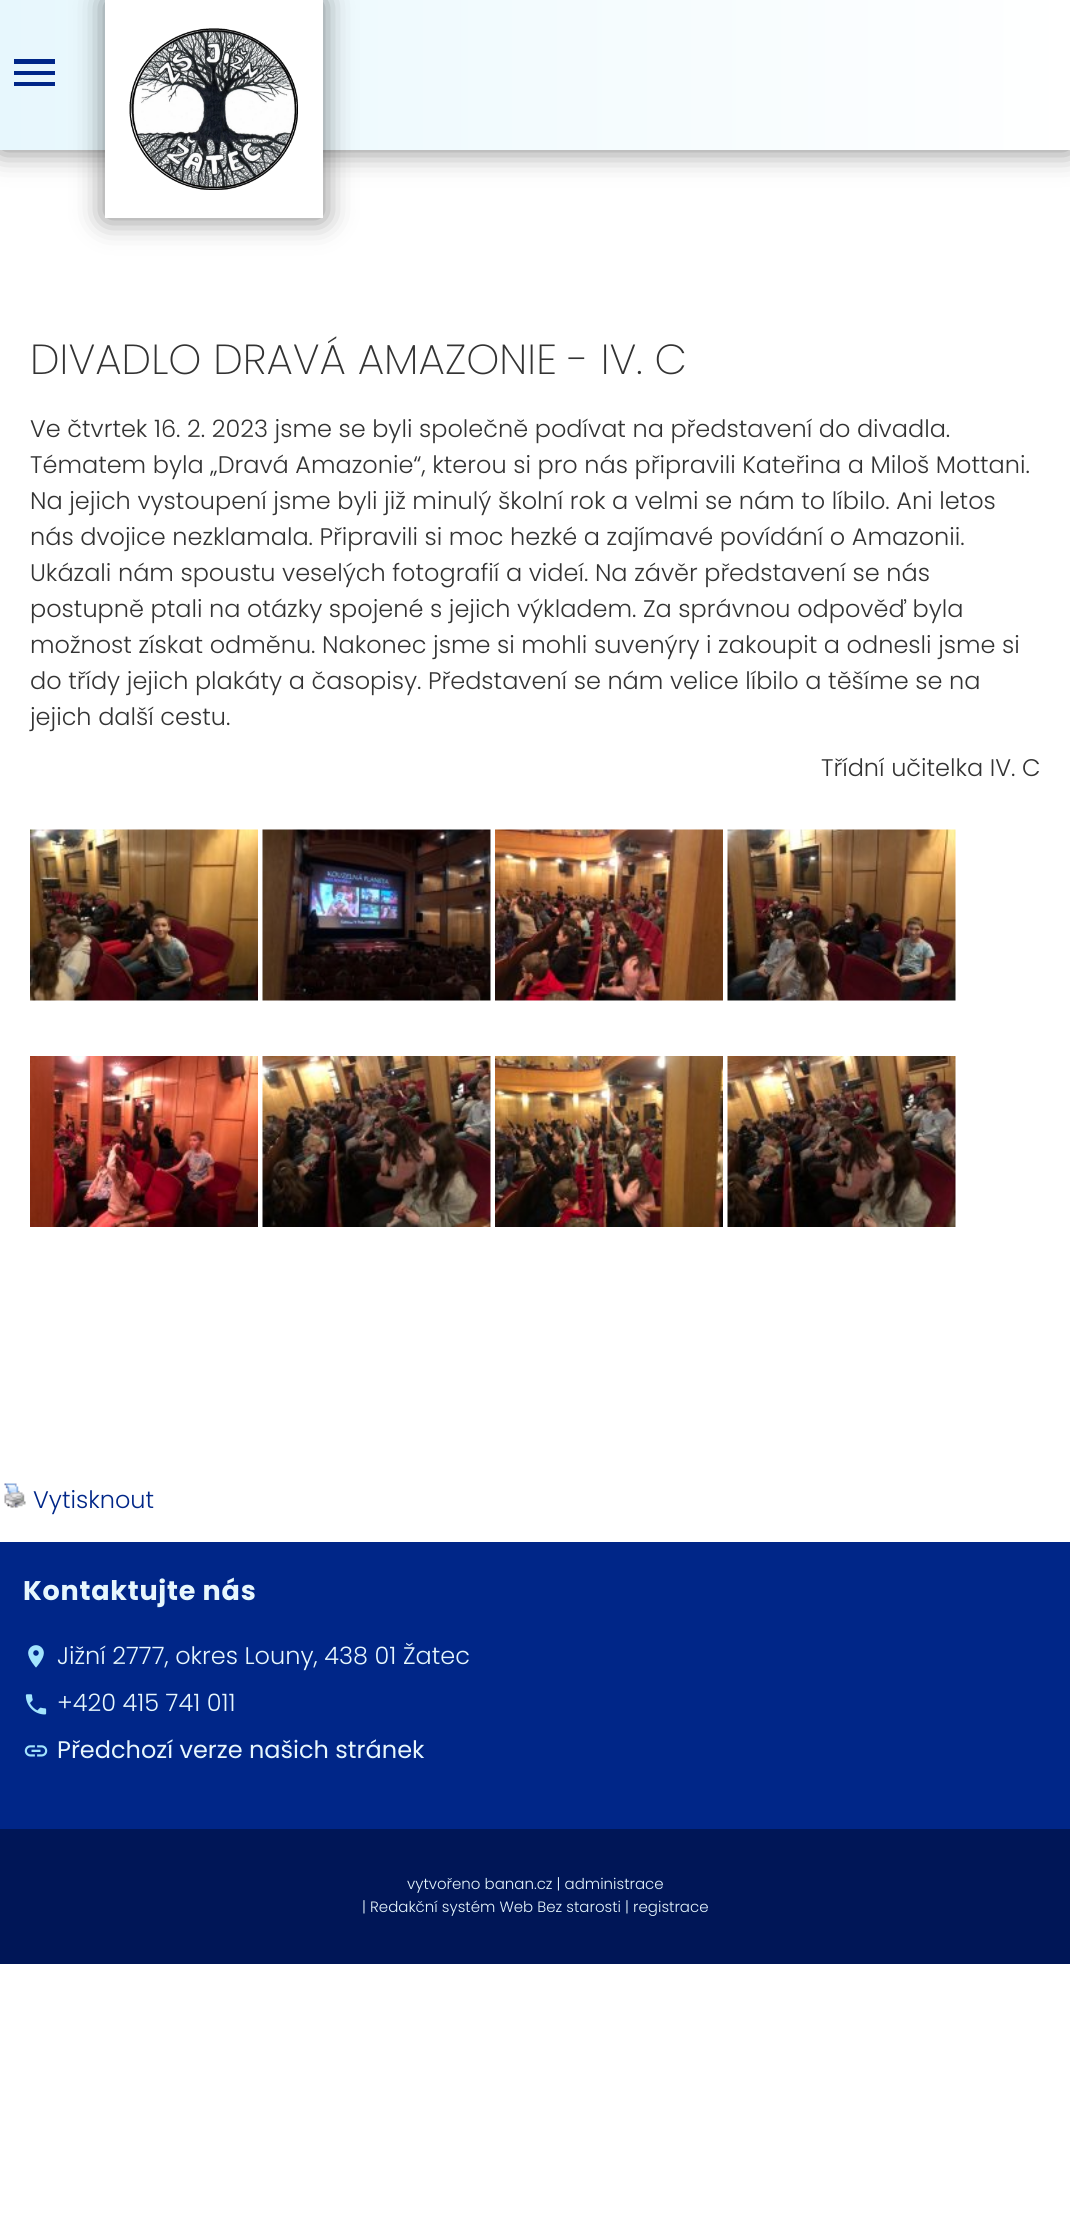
import math
import cairo


def use_color(cr, r, g, b):
  cr.set_source_rgb(r / 255, g / 255, b / 255)

def text(cr, x, y, s, family, size, color, bold=False, italic=False):
  cr.select_font_face(family, cairo.FONT_SLANT_ITALIC if italic else cairo.FONT_SLANT_NORMAL, cairo.FONT_WEIGHT_BOLD if bold else cairo.FONT_WEIGHT_NORMAL)
  cr.set_font_size(size)
  use_color(cr, *color)
  cr.move_to(x, y)
  cr.show_text(s)

def spaced_text(cr, x, y, s, letter, word):
  cr.move_to(x, y)
  for ch in s:
    cr.show_text(ch)
    cr.rel_move_to(letter + word * (ch == ' '), 0)

def box(cr, x, y, w, h, *color):
  use_color(cr, *color)
  cr.rectangle(x, y, w, h)
  cr.fill()

def round_rect(cr, x, y, w, h, r):
  cr.new_sub_path()
  for i, (u, v) in enumerate([(x + w - r, y + h - r), (x + r, y + h - r), (x + r, y + r), (x + w - r, y + r)]):
    cr.arc(u, v, r, i * math.pi / 2, (i + 1) * math.pi / 2)
  cr.close_path()

def shadow(cr, x, y, w, h, r, blur, alpha):
  cr.push_group_with_content(cairo.CONTENT_ALPHA)
  cr.set_operator(cairo.OPERATOR_SOURCE)
  for i in range(15, -16, -2):
    e = blur * i / 6
    if min(w, h) + 2 * e > 0:
      cr.set_source_rgba(0, 0, 0, alpha * math.erfc((i - 1) / 8.5) / 2)
      round_rect(cr, x - e, y - e, w + 2 * e, h + 2 * e, max(0, min(r + e + blur * .6, min(w, h) / 2 + e)))
      cr.fill()
  cr.mask(cr.pop_group())

def picture(cr, path, x, y, w, h):
  cr.save()
  cr.set_source_surface(cairo.ImageSurface.create_from_png(path), x, y)
  cr.rectangle(x, y, w, h)
  cr.fill()
  cr.restore()

def draw(cr):
  use_color(cr, 255, 255, 255)
  cr.paint()
  use_color(cr, 0, 0, 0)
  shadow(cr, 0, 0, 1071, 150, 0, 15, 0.5)
  gradient = cairo.LinearGradient(0, 75, 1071, 75)
  gradient.add_color_stop_rgba(0, 0.906, 0.969, 0.992, 1)
  gradient.add_color_stop_rgba(1, 1, 1, 1, 1)
  cr.set_source(gradient)
  cr.rectangle(0, 0, 1070, 150)
  cr.fill()
  use_color(cr, 0, 38, 136)
  cr.new_path()
  cr.move_to(14, 59)
  cr.line_to(55, 59)
  cr.line_to(55, 64)
  cr.line_to(14, 64)
  cr.close_path()
  cr.move_to(14, 71)
  cr.line_to(55, 71)
  cr.line_to(55, 75)
  cr.line_to(14, 75)
  cr.close_path()
  cr.move_to(14, 82)
  cr.line_to(55, 82)
  cr.line_to(55, 86)
  cr.line_to(14, 86)
  cr.close_path()
  cr.fill()
  use_color(cr, 0, 0, 0)
  shadow(cr, 105, 0, 218, 218, 0, 15, 0.5)
  box(cr, 105, 0, 218, 218, 255, 255, 255)
  picture(cr, "img_01.png", 129, 28, 170, 162)
  picture(cr, "img_02.png", 30, 829, 228, 172)
  picture(cr, "img_03.png", 262, 829, 229, 172)
  picture(cr, "img_04.png", 495, 829, 228, 172)
  picture(cr, "img_05.png", 727, 829, 229, 172)
  picture(cr, "img_06.png", 30, 1056, 228, 171)
  picture(cr, "img_07.png", 262, 1056, 229, 171)
  picture(cr, "img_08.png", 495, 1056, 228, 171)
  picture(cr, "img_09.png", 727, 1056, 229, 171)
  picture(cr, "img_10.png", 4, 1483, 22, 25)
  box(cr, 0, 1542, 1070, 287, 0, 38, 136)
  picture(cr, "img_11.png", 28, 1645, 16, 23)
  picture(cr, "img_12.png", 25, 1694, 22, 21)
  picture(cr, "img_13.png", 24, 1745, 24, 12)
  box(cr, 0, 1829, 1070, 135, 0, 22, 87)
  text(cr, 30, 374, "DIVADLO DRAVÁ AMAZONIE - IV. C", "Poppins ExtraLight", 42, (51, 51, 51))
  text(cr, 30, 437, "Ve čtvrtek 16. 2. 2023 jsme se byli společně podívat na představení do divadla.", "Poppins Light", 24, (51, 51, 51))
  text(cr, 30, 473, "Tématem byla „Dravá Amazonie“, kterou si pro nás připravili Kateřina a Miloš Mottani.", "Poppins Light", 24, (51, 51, 51))
  text(cr, 30, 509, "Na jejich vystoupení jsme byli již minulý školní rok a velmi se nám to líbilo. Ani letos", "Poppins Light", 24, (51, 51, 51))
  text(cr, 30, 545, "nás dvojice nezklamala. Připravili si moc hezké a zajímavé povídání o Amazonii.", "Poppins Light", 24, (51, 51, 51))
  text(cr, 30, 581, "Ukázali nám spoustu veselých fotografií a videí. Na závěr představení se nás", "Poppins Light", 24, (51, 51, 51))
  text(cr, 30, 617, "postupně ptali na otázky spojené s jejich výkladem. Za správnou odpověď byla", "Poppins Light", 24, (51, 51, 51))
  text(cr, 30, 653, "možnost získat odměnu. Nakonec jsme si mohli suvenýry i zakoupit a odnesli jsme si", "Poppins Light", 24, (51, 51, 51))
  text(cr, 30, 689, "do třídy jejich plakáty a časopisy. Představení se nám velice líbilo a těšíme se na", "Poppins Light", 24, (51, 51, 51))
  text(cr, 30, 725, "jejich další cestu.", "Poppins Light", 24, (51, 51, 51))
  text(cr, 821, 776, "Třídní učitelka IV. C", "Poppins Light", 24, (51, 51, 51))
  text(cr, 33, 1508, "Vytisknout", "Poppins Light", 24, (0, 38, 136))
  cr.select_font_face("Poppins", cairo.FONT_SLANT_NORMAL, cairo.FONT_WEIGHT_BOLD)
  cr.set_font_size(27)
  use_color(cr, 231, 247, 253)
  spaced_text(cr, 23, 1600, "Kontaktujte nás", 0.75, 0)
  text(cr, 57, 1664, "Jižní 2777, okres Louny, 438 01 Žatec", "Poppins Light", 24, (231, 247, 253))
  text(cr, 57, 1711, "+420 415 741 011", "Poppins Light", 24, (231, 247, 253))
  text(cr, 57, 1758, "Předchozí verze našich stránek", "Poppins", 24, (231, 247, 253))
  text(cr, 407, 1889, "vytvořeno banan.cz | administrace", "Poppins Light", 15, (231, 247, 253))
  text(cr, 362, 1912, "| Redakční systém Web Bez starosti | registrace", "Poppins Light", 15, (231, 247, 253))


surface = cairo.ImageSurface(cairo.FORMAT_RGB24, 1070, 2217)
cr = cairo.Context(surface)
options = cairo.FontOptions()
options.set_hint_metrics(cairo.HINT_METRICS_OFF)
options.set_hint_style(cairo.HINT_STYLE_NONE)
cr.set_font_options(options)
cr.set_miter_limit(4)
draw(cr)
surface.write_to_png("out.png")
